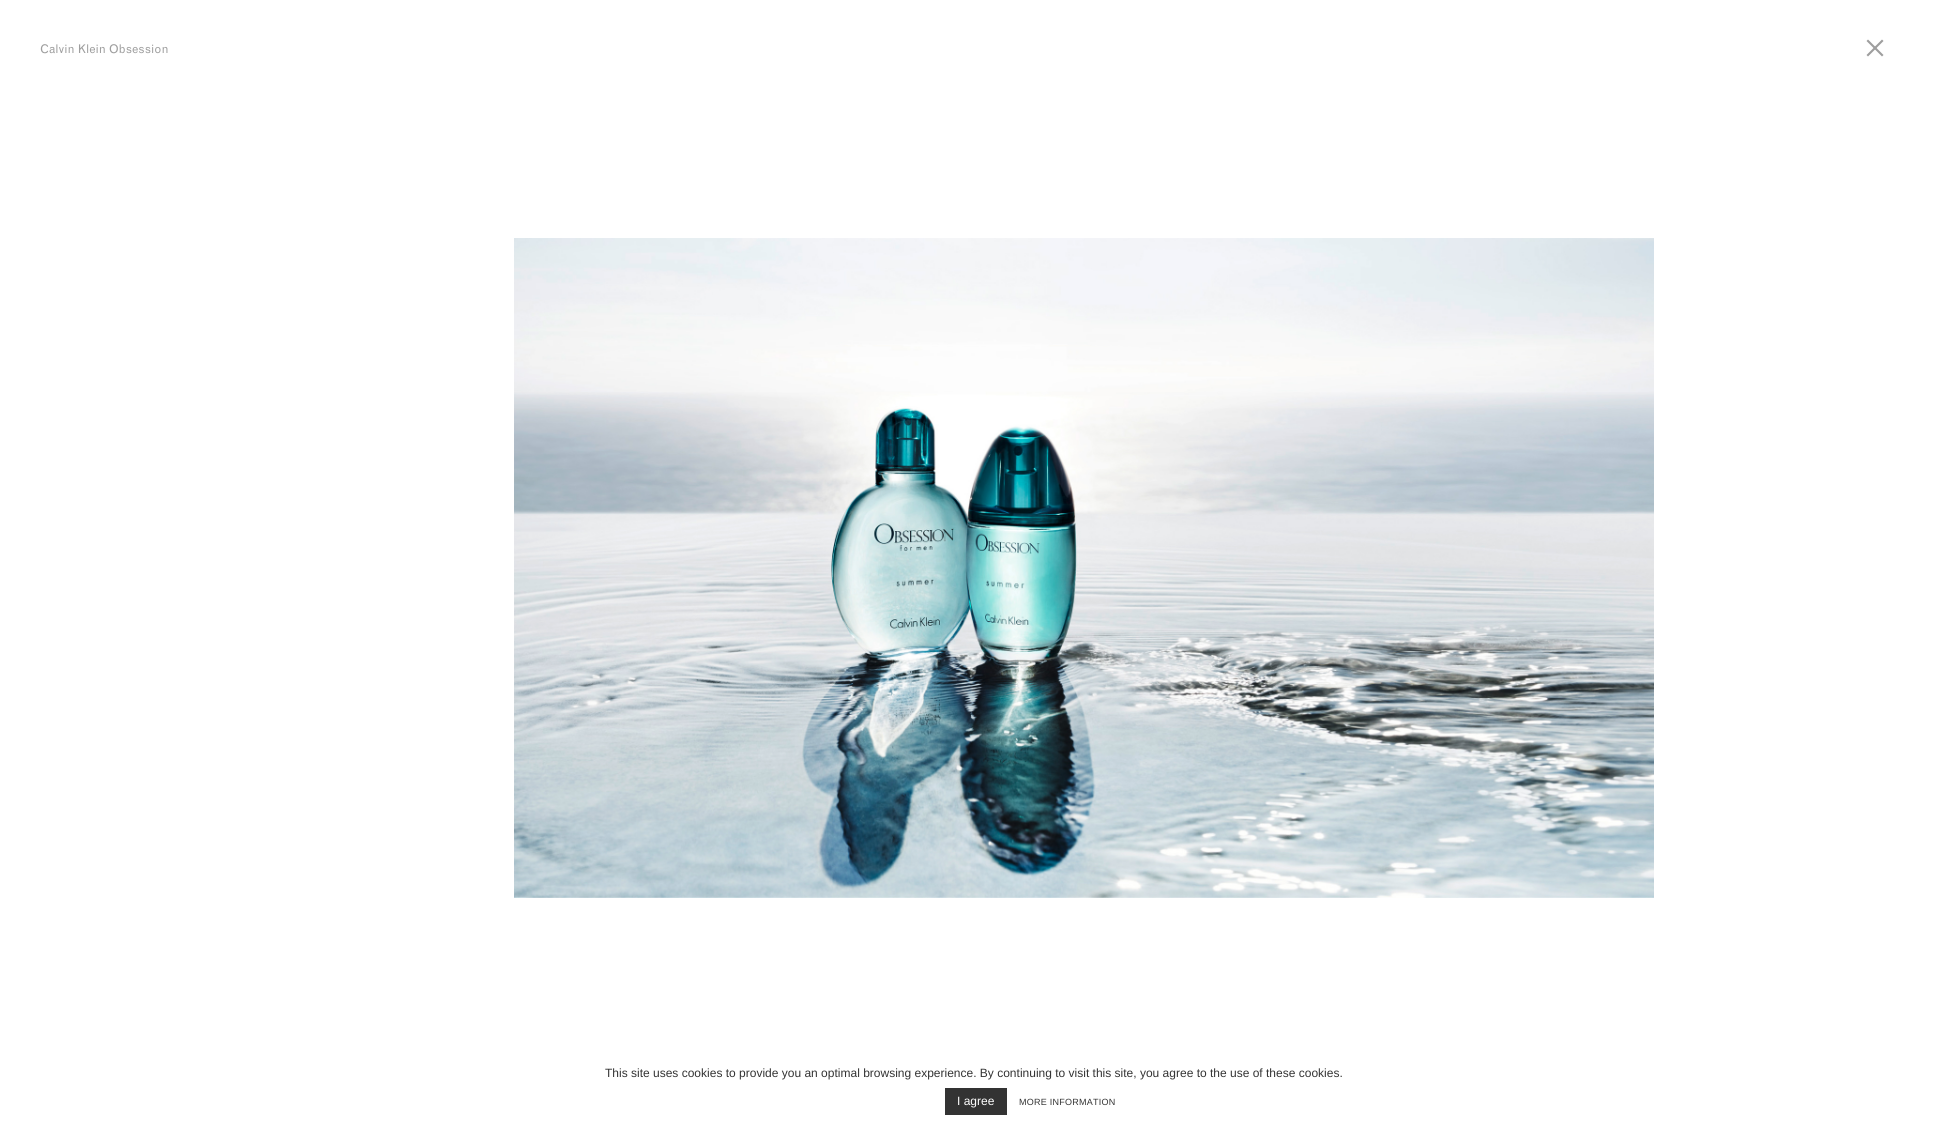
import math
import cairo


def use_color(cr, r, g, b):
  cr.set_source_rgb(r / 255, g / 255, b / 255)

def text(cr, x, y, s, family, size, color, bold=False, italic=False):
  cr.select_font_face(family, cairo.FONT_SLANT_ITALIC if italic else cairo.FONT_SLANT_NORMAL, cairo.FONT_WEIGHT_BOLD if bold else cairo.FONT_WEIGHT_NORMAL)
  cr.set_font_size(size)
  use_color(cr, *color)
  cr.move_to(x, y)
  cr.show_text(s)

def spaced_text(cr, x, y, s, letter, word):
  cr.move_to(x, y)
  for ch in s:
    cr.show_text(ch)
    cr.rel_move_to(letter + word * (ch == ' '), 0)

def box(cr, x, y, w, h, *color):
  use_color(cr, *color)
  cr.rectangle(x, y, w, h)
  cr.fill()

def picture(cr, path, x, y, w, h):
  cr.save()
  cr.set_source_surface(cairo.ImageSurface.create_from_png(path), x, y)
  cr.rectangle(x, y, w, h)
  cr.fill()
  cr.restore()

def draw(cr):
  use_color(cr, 255, 255, 255)
  cr.paint()
  use_color(cr, 158, 158, 158)
  cr.new_path()
  cr.move_to(1868, 39.5)
  cr.line_to(1876.5, 48)
  cr.line_to(1875, 49.5)
  cr.line_to(1866.5, 41)
  cr.close_path()
  cr.fill()
  cr.new_path()
  cr.move_to(1875, 46.5)
  cr.line_to(1876.5, 48)
  cr.line_to(1868, 56.5)
  cr.line_to(1866.5, 55)
  cr.close_path()
  cr.fill()
  cr.new_path()
  cr.move_to(1873.5, 48)
  cr.line_to(1882, 39.5)
  cr.line_to(1883.5, 41)
  cr.line_to(1875, 49.5)
  cr.close_path()
  cr.fill()
  cr.new_path()
  cr.move_to(1873.5, 48)
  cr.line_to(1875, 46.5)
  cr.line_to(1883.5, 55)
  cr.line_to(1882, 56.5)
  cr.close_path()
  cr.fill()
  picture(cr, "img_01.png", 514, 238, 1140, 660)
  box(cr, 945, 1088, 62, 27, 51, 51, 51)
  text(cr, 40, 53, "Calvin Klein Obsession", "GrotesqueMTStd", 12, (158, 158, 158))
  text(cr, 605, 1077, "This site uses cookies to provide you an optimal browsing experience. By continuing to visit this site, you agree to the use of these cookies.", "Liberation Sans", 12, (51, 51, 51))
  text(cr, 957, 1105, "I agree", "Liberation Sans", 12, (255, 255, 255))
  cr.set_font_size(9)
  use_color(cr, 51, 51, 51)
  spaced_text(cr, 1019, 1105, "MORE INFORMATION", 0.25, 0)


surface = cairo.ImageSurface(cairo.FORMAT_RGB24, 1948, 1135)
cr = cairo.Context(surface)
options = cairo.FontOptions()
options.set_hint_metrics(cairo.HINT_METRICS_OFF)
options.set_hint_style(cairo.HINT_STYLE_NONE)
cr.set_font_options(options)
cr.set_miter_limit(4)
draw(cr)
surface.write_to_png("out.png")
